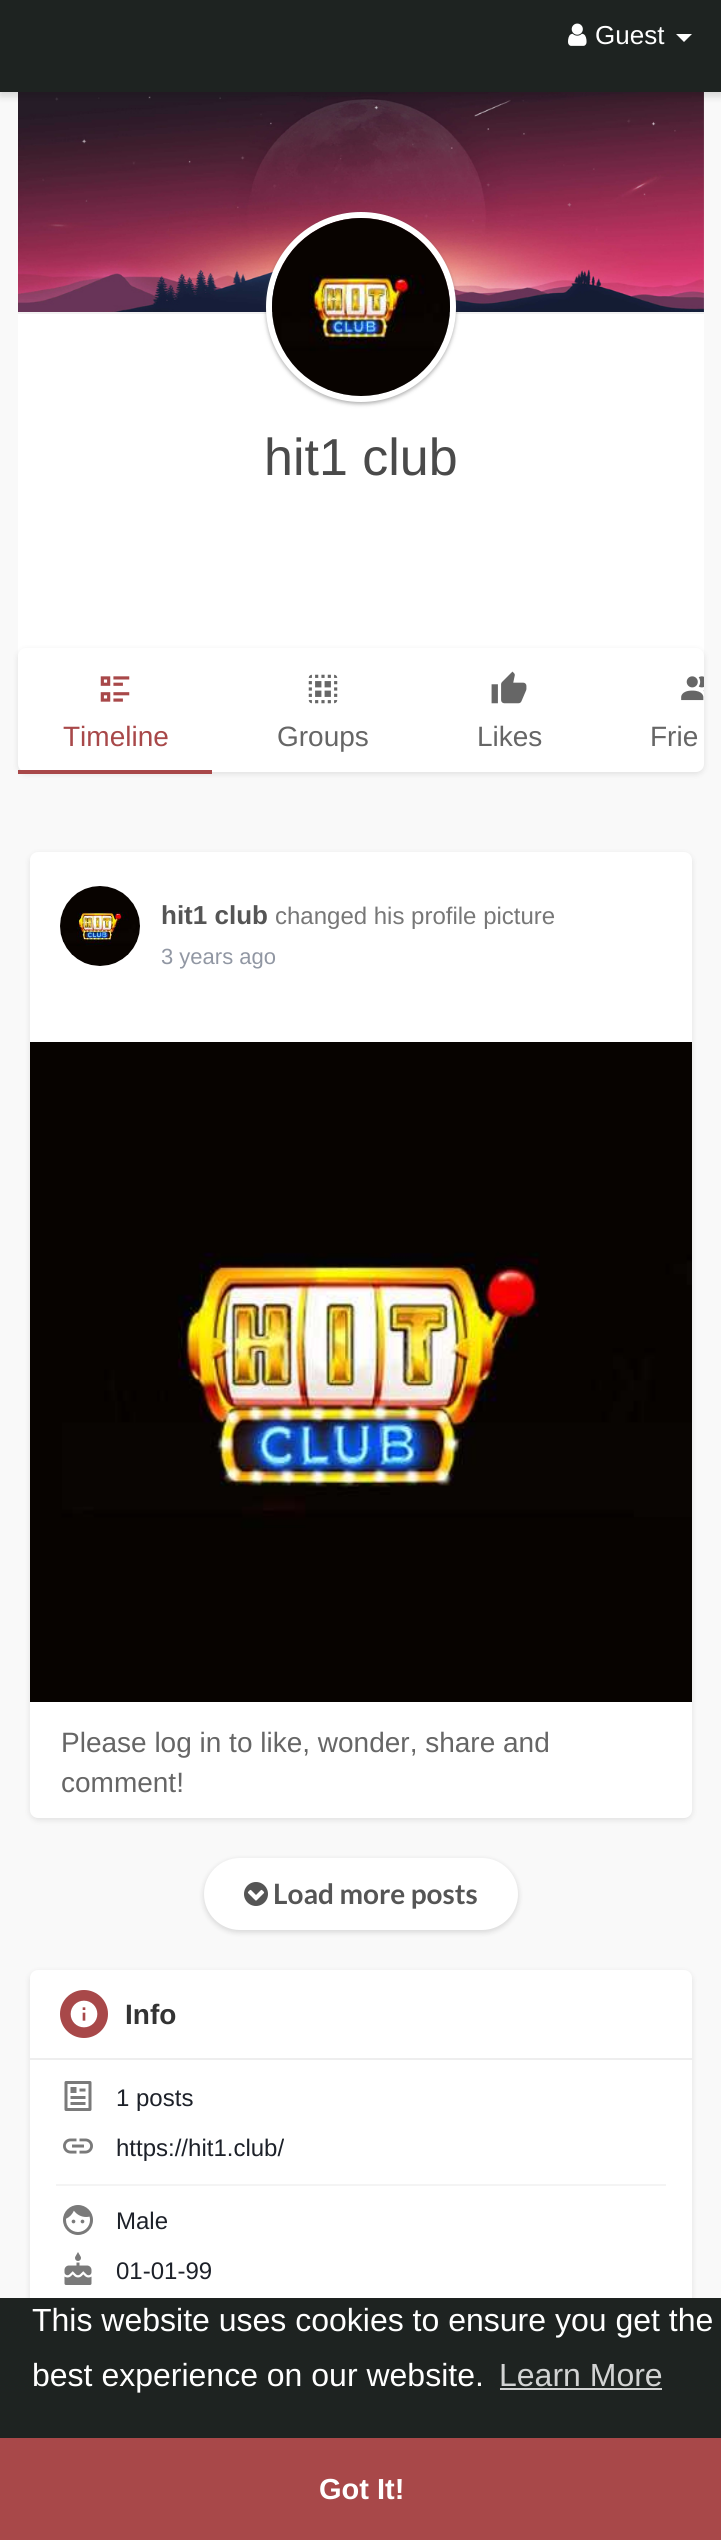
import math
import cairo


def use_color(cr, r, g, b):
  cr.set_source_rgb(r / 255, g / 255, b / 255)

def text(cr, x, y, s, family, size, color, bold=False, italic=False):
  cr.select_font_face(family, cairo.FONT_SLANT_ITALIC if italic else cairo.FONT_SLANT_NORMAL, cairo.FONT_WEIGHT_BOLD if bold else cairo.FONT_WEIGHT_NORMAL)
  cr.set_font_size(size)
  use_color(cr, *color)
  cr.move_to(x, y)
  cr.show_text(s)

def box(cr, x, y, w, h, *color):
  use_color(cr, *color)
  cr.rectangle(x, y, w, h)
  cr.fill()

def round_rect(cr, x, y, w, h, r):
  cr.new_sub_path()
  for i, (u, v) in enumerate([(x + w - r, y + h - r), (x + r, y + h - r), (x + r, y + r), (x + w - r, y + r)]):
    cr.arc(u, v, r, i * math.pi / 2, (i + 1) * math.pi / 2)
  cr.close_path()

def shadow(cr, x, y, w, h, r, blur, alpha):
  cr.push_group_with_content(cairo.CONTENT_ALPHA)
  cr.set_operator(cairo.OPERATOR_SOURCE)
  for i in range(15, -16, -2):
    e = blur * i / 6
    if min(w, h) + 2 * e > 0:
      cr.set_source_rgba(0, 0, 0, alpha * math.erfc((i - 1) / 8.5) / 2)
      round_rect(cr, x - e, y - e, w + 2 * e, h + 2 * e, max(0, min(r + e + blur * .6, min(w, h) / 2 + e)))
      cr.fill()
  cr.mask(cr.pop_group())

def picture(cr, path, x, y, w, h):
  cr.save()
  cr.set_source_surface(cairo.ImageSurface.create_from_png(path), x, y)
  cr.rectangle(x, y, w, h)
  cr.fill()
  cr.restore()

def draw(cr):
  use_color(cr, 249, 249, 249)
  cr.paint()
  picture(cr, "img_02.png", 18, 92, 686, 220)
  use_color(cr, 0, 0, 0)
  shadow(cr, 0, 4, 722, 92, 0, 4, 0.15)
  box(cr, 0, 0, 721, 92, 30, 35, 33)
  picture(cr, "img_01.png", 568, 23, 19, 23)
  use_color(cr, 255, 255, 255)
  cr.new_path()
  cr.move_to(676, 34)
  cr.line_to(692, 34)
  cr.line_to(684, 42)
  cr.close_path()
  cr.fill()
  box(cr, 18, 312, 686, 2, 241, 241, 241)
  box(cr, 18, 314, 686, 342, 255, 255, 255)
  use_color(cr, 68, 68, 68)
  shadow(cr, 266, 214, 190, 190, 95, 2, 0.42)
  cr.arc(361, 307, 92, 0, 2 * math.pi)
  use_color(cr, 255, 255, 255)
  cr.set_line_width(6)
  cr.stroke()
  picture(cr, "img_03.png", 272, 218, 178, 178)
  use_color(cr, 0, 0, 0)
  shadow(cr, 18, 650, 686, 124, 8, 3, 0.1)
  use_color(cr, 255, 255, 255)
  round_rect(cr, 18, 648, 686, 124, 8)
  cr.fill()
  box(cr, 18, 770, 194, 4, 168, 72, 73)
  picture(cr, "img_04.png", 100, 676, 30, 26)
  picture(cr, "img_05.png", 308, 674, 30, 30)
  picture(cr, "img_06.png", 491, 671, 36, 33)
  picture(cr, "img_07.png", 681, 676, 23, 25)
  use_color(cr, 0, 0, 0)
  shadow(cr, 30, 854, 662, 966, 8, 3, 0.1)
  use_color(cr, 255, 255, 255)
  round_rect(cr, 30, 852, 662, 966, 8)
  cr.fill()
  picture(cr, "img_08.png", 60, 886, 80, 80)
  picture(cr, "img_09.png", 30, 1042, 662, 660)
  use_color(cr, 0, 0, 0)
  shadow(cr, 204, 1860, 314, 72, 36, 3, 0.15)
  use_color(cr, 255, 255, 255)
  round_rect(cr, 204, 1858, 314, 72, 36)
  cr.fill()
  picture(cr, "img_10.png", 244, 1882, 24, 24)
  use_color(cr, 0, 0, 0)
  shadow(cr, 30, 1972, 662, 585, 8, 3, 0.1)
  use_color(cr, 255, 255, 255)
  round_rect(cr, 30, 1970, 662, 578, 8)
  cr.fill()
  box(cr, 30, 2058, 662, 2, 238, 238, 238)
  use_color(cr, 168, 72, 73)
  cr.arc(84, 2014, 24, 0, 2 * math.pi)
  cr.fill()
  picture(cr, "img_11.png", 70, 2000, 28, 28)
  picture(cr, "img_12.png", 64, 2081, 28, 30)
  picture(cr, "img_13.png", 63, 2138, 30, 16)
  box(cr, 56, 2184, 610, 2, 244, 244, 244)
  picture(cr, "img_14.png", 63, 2205, 30, 30)
  picture(cr, "img_15.png", 64, 2252, 28, 33)
  box(cr, 0, 2298, 721, 140, 30, 35, 33)
  box(cr, 500, 2388, 162, 2, 210, 211, 211)
  box(cr, 0, 2438, 721, 102, 168, 72, 73)
  text(cr, 595, 44, "Guest", "Liberation Sans", 26, (255, 255, 255))
  text(cr, 264, 475, "hit1 club", "Liberation Sans", 52, (74, 74, 74))
  text(cr, 63, 746, "Timeline", "Liberation Sans", 28, (168, 72, 73))
  text(cr, 277, 746, "Groups", "Liberation Sans", 28, (102, 102, 102))
  text(cr, 477, 746, "Likes", "Liberation Sans", 28, (102, 102, 102))
  text(cr, 650, 746, "Frie", "Liberation Sans", 28, (102, 102, 102))
  text(cr, 161, 924, "hit1 club", "Liberation Sans", 26, (85, 85, 85), bold=True)
  text(cr, 275, 924, "changed his profile picture", "Liberation Sans", 24, (119, 119, 119))
  text(cr, 161, 964, "3 years ago", "Liberation Sans", 22, (145, 151, 163))
  text(cr, 61, 1752, "Please log in to like, wonder, share and", "Liberation Sans", 28, (102, 102, 102))
  text(cr, 61, 1792, "comment!", "Liberation Sans", 28, (102, 102, 102))
  text(cr, 273, 1904, "Load more posts", "Lato", 28, (85, 85, 85), bold=True)
  text(cr, 125, 2024, "Info", "Liberation Sans", 28, (51, 51, 51), bold=True)
  text(cr, 116, 2106, "1 posts", "Liberation Sans", 24, (29, 33, 41))
  text(cr, 116, 2156, "https://hit1.club/", "Liberation Sans", 24, (29, 33, 41))
  text(cr, 116, 2229, "Male", "Liberation Sans", 24, (29, 33, 41))
  text(cr, 116, 2279, "01-01-99", "Liberation Sans", 24, (29, 33, 41))
  text(cr, 32, 2331, "This website uses cookies to ensure you get the", "Liberation Sans", 32, (255, 255, 255))
  text(cr, 32, 2386, "best experience on our website.", "Liberation Sans", 32, (255, 255, 255))
  text(cr, 499, 2386, "Learn More", "Liberation Sans", 32, (210, 211, 211))
  text(cr, 319, 2499, "Got It!", "Liberation Sans", 29, (255, 255, 255), bold=True)


surface = cairo.ImageSurface(cairo.FORMAT_RGB24, 721, 2540)
cr = cairo.Context(surface)
options = cairo.FontOptions()
options.set_hint_metrics(cairo.HINT_METRICS_OFF)
options.set_hint_style(cairo.HINT_STYLE_NONE)
cr.set_font_options(options)
cr.set_miter_limit(4)
draw(cr)
surface.write_to_png("out.png")
